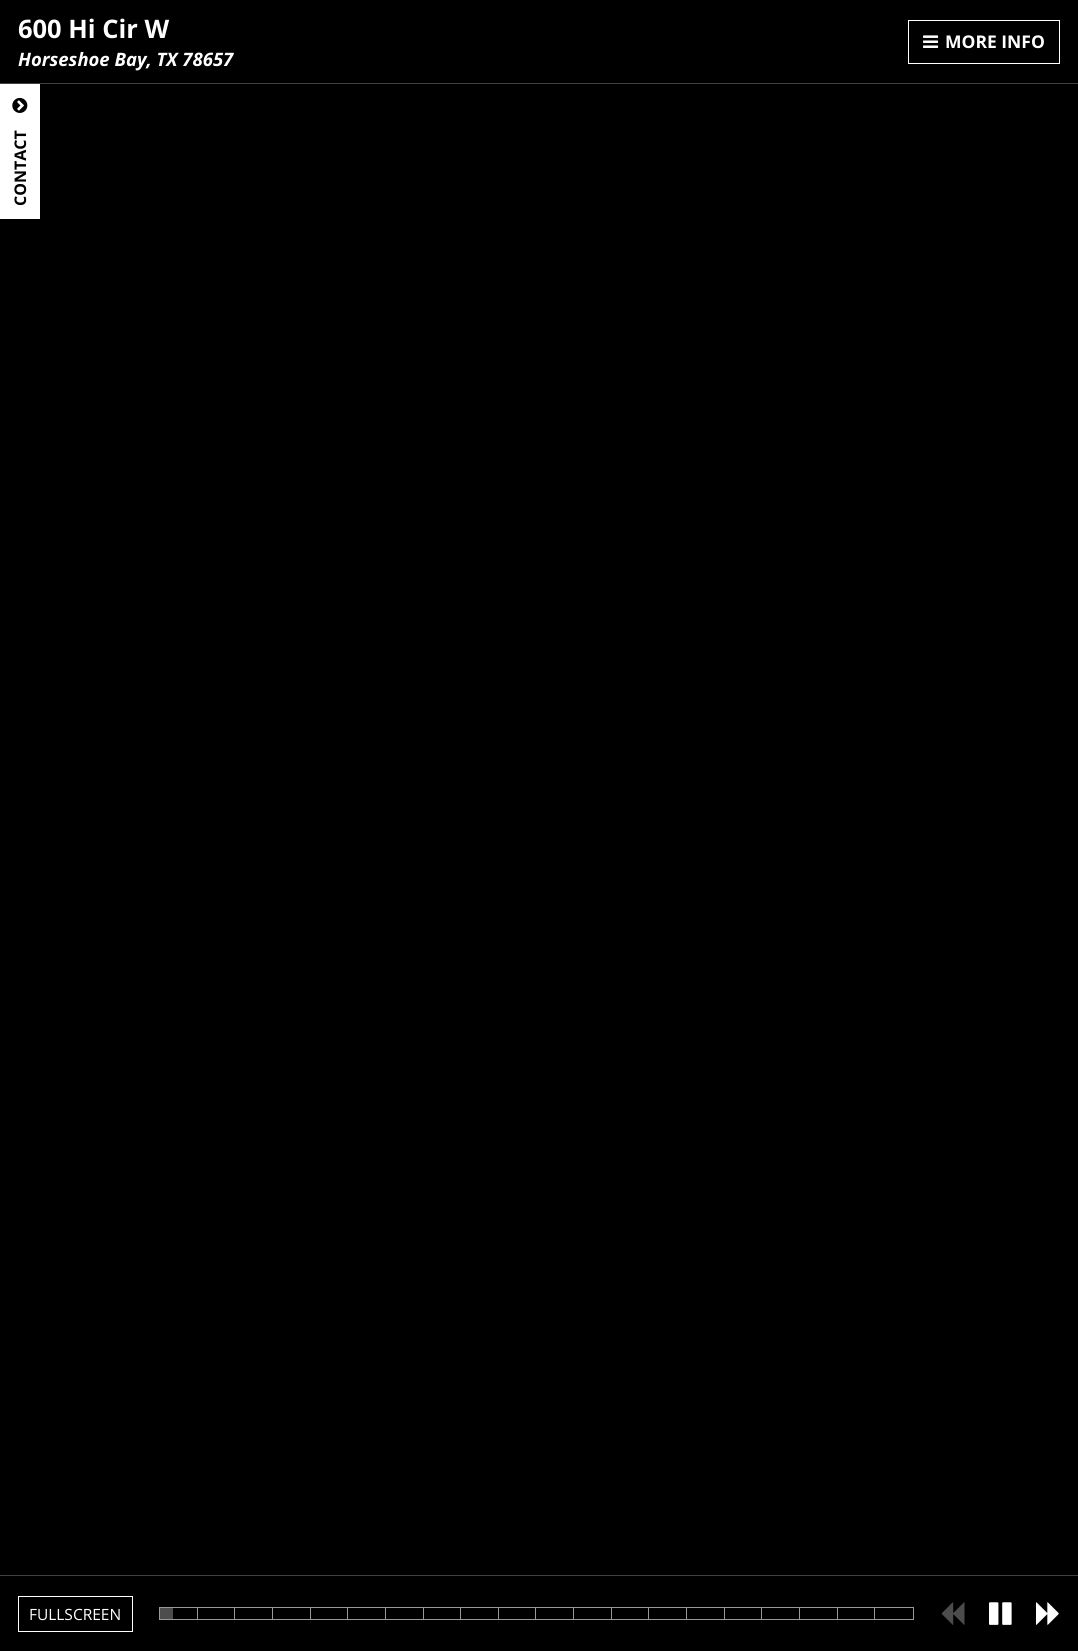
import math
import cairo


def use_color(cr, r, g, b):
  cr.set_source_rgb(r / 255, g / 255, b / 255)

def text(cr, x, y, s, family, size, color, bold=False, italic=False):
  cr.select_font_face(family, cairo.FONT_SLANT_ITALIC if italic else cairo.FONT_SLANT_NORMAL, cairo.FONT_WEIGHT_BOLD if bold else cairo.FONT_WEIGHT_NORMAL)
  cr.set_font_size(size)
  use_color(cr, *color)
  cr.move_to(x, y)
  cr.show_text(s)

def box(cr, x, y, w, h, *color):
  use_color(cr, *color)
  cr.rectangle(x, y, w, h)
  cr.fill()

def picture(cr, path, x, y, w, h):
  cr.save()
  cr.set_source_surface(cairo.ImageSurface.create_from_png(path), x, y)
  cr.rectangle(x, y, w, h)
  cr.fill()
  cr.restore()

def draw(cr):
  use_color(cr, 0, 0, 0)
  cr.paint()
  box(cr, 0, 83, 1078, 1, 64, 64, 64)
  cr.rectangle(908.5, 20.5, 151, 43)
  use_color(cr, 255, 255, 255)
  cr.set_line_width(1)
  cr.stroke()
  picture(cr, "img_01.png", 923, 35, 16, 13)
  box(cr, 0, 84, 40, 135, 255, 255, 255)
  picture(cr, "img_02.png", 12, 97, 16, 16)
  box(cr, 0, 1575, 1078, 1, 64, 64, 64)
  cr.rectangle(18.5, 1596.5, 114, 35)
  use_color(cr, 255, 255, 255)
  cr.stroke()
  cr.rectangle(159.5, 1607.5, 754, 12)
  use_color(cr, 153, 153, 153)
  cr.stroke()
  box(cr, 160, 1608, 13, 11, 77, 77, 77)
  box(cr, 197, 1608, 1, 11, 153, 153, 153)
  box(cr, 234, 1608, 1, 11, 153, 153, 153)
  box(cr, 272, 1608, 1, 11, 153, 153, 153)
  box(cr, 310, 1608, 1, 11, 153, 153, 153)
  box(cr, 347, 1608, 1, 11, 153, 153, 153)
  box(cr, 385, 1608, 1, 11, 153, 153, 153)
  box(cr, 423, 1608, 1, 11, 153, 153, 153)
  box(cr, 460, 1608, 1, 11, 153, 153, 153)
  box(cr, 498, 1608, 1, 11, 153, 153, 153)
  box(cr, 535, 1608, 1, 11, 153, 153, 153)
  box(cr, 573, 1608, 1, 11, 153, 153, 153)
  box(cr, 611, 1608, 1, 11, 153, 153, 153)
  box(cr, 648, 1608, 1, 11, 153, 153, 153)
  box(cr, 686, 1608, 1, 11, 153, 153, 153)
  box(cr, 724, 1608, 1, 11, 153, 153, 153)
  box(cr, 761, 1608, 1, 11, 153, 153, 153)
  box(cr, 799, 1608, 1, 11, 153, 153, 153)
  box(cr, 837, 1608, 1, 11, 153, 153, 153)
  box(cr, 874, 1608, 1, 11, 153, 153, 153)
  picture(cr, "img_03.png", 941, 1602, 24, 23)
  picture(cr, "img_04.png", 989, 1602, 23, 23)
  picture(cr, "img_05.png", 1036, 1602, 23, 23)
  text(cr, 18, 38, "600 Hi Cir W", "Open Sans", 25.5, (255, 255, 255), bold=True)
  text(cr, 18, 66, "Horseshoe Bay, TX 78657", "Open Sans", 18.5, (255, 255, 255), bold=True, italic=True)
  text(cr, 945, 48, "MORE INFO", "Open Sans", 17.5, (255, 255, 255), bold=True)
  cr.save()
  cr.translate(26, 206)
  cr.rotate(-90 * math.pi / 180)
  text(cr, 0, 0, "CONTACT", "Open Sans", 16, (0, 0, 0), bold=True)
  cr.restore()
  text(cr, 29, 1620, "FULLSCREEN", "Open Sans", 15.5, (255, 255, 255))


surface = cairo.ImageSurface(cairo.FORMAT_RGB24, 1078, 1651)
cr = cairo.Context(surface)
options = cairo.FontOptions()
options.set_hint_metrics(cairo.HINT_METRICS_OFF)
options.set_hint_style(cairo.HINT_STYLE_NONE)
cr.set_font_options(options)
cr.set_miter_limit(4)
draw(cr)
surface.write_to_png("out.png")
